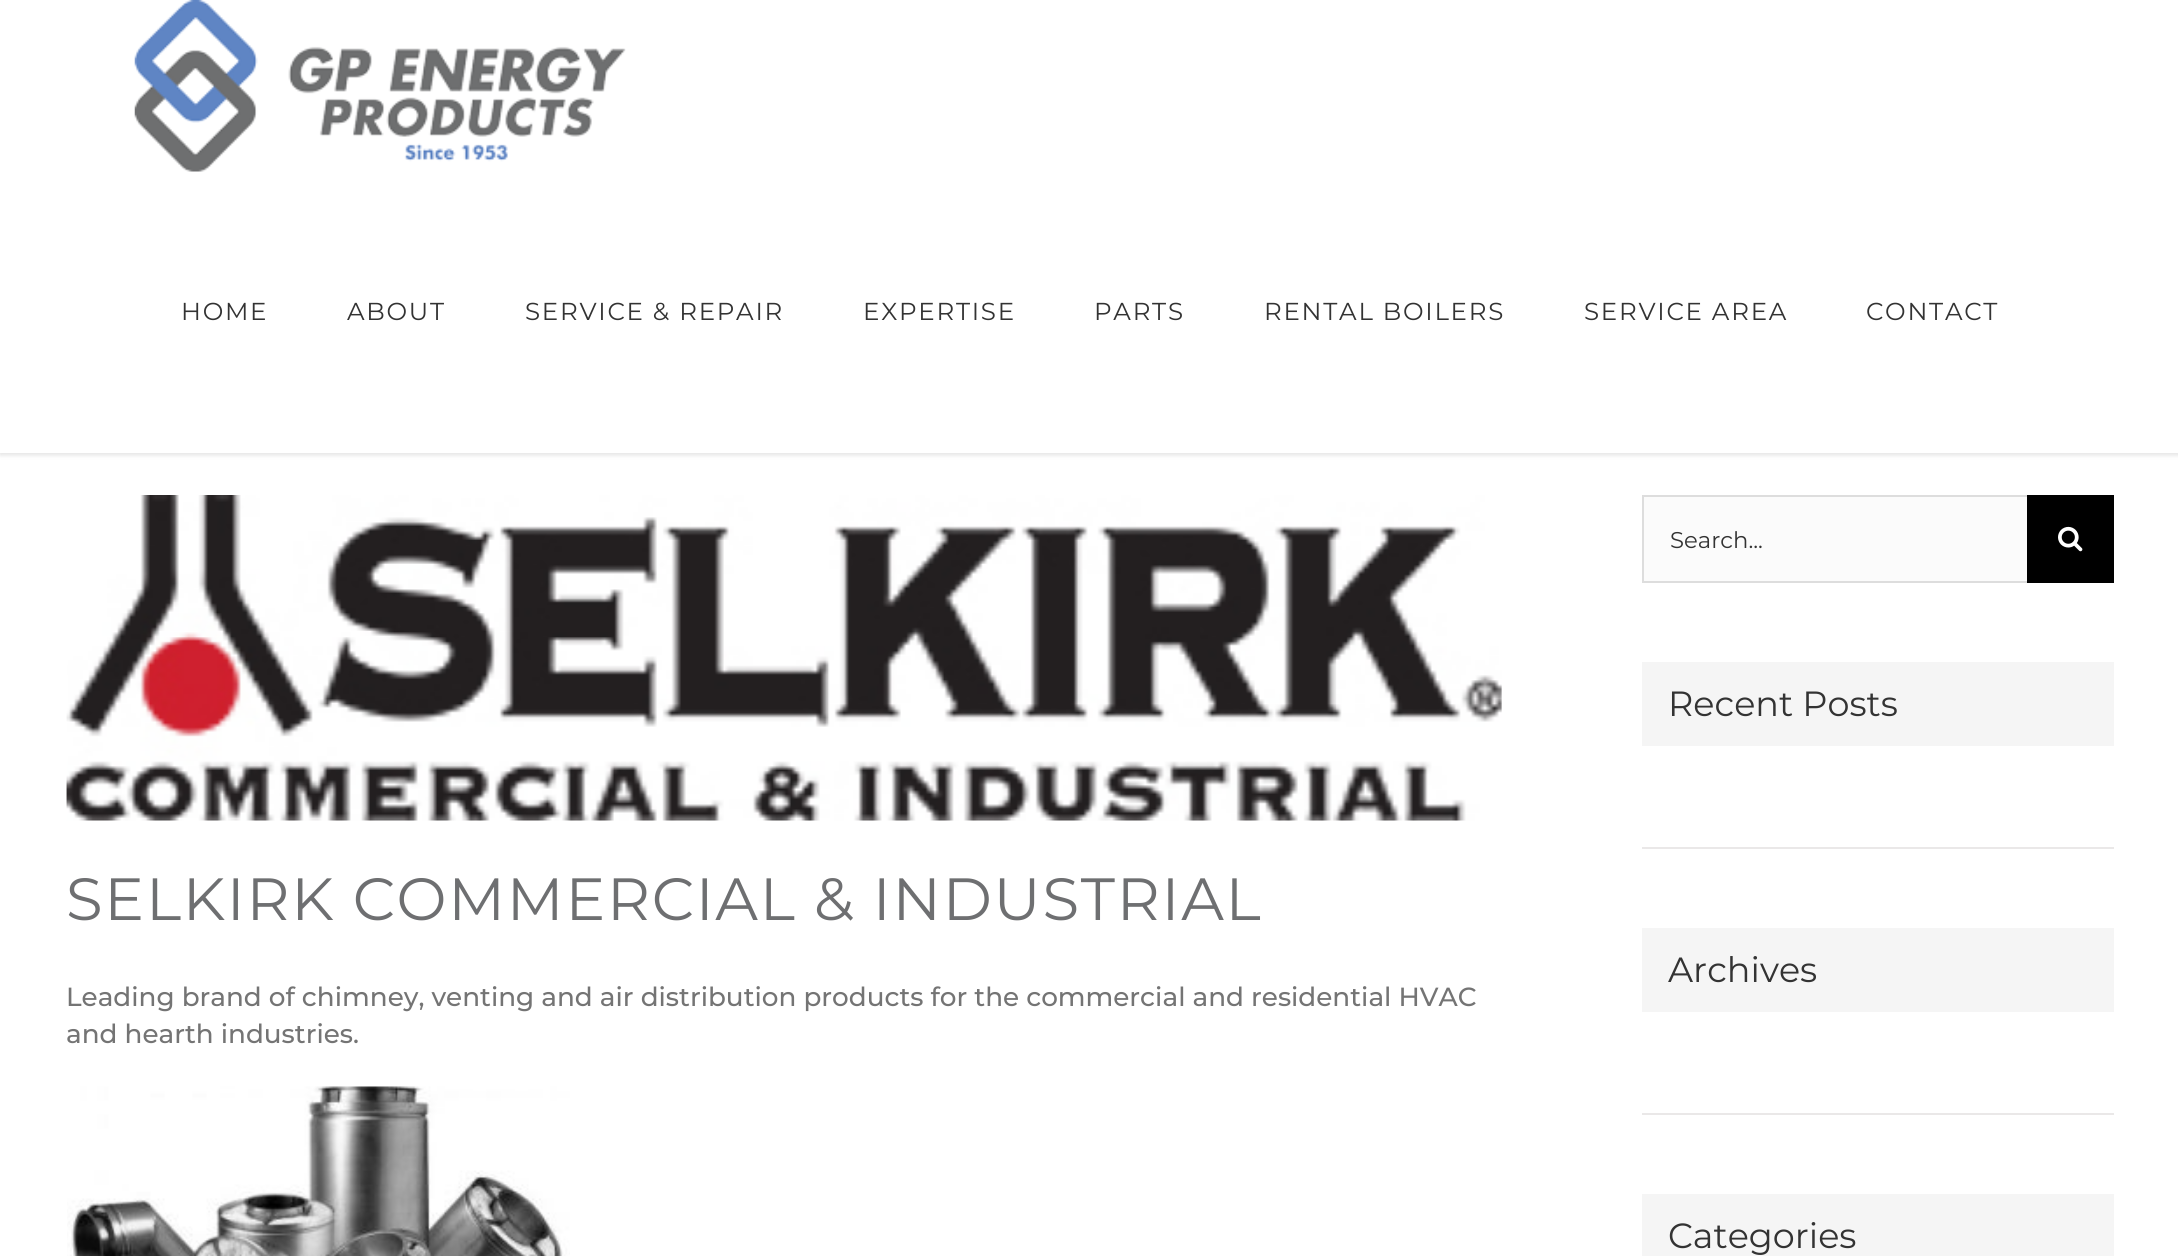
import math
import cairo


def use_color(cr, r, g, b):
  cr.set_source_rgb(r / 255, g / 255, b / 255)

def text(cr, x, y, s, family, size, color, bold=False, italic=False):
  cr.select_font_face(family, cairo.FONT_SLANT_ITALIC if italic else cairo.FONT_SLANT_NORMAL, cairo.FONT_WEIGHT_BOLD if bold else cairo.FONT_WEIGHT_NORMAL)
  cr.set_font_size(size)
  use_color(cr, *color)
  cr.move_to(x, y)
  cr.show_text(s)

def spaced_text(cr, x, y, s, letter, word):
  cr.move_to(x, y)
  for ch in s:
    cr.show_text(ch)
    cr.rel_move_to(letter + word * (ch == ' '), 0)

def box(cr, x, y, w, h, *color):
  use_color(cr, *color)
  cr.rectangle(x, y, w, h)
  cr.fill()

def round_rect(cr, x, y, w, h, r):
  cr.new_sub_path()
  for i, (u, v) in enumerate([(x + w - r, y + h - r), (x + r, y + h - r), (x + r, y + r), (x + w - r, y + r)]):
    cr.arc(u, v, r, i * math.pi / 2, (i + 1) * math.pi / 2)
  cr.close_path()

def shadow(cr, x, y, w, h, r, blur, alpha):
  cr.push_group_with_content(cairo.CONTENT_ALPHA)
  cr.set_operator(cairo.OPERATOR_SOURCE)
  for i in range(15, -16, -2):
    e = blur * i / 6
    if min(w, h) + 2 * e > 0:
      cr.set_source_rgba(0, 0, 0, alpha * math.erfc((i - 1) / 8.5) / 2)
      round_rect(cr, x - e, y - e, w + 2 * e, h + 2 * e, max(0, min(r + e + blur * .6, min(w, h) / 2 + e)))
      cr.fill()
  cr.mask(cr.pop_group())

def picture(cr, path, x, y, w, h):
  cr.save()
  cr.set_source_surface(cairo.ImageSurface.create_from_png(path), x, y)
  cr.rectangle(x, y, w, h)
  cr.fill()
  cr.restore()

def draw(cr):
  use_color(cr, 255, 255, 255)
  cr.paint()
  use_color(cr, 0, 0, 0)
  shadow(cr, 0, 2, 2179, 453, 0, 2.5, 0.12)
  box(cr, 0, 0, 2178, 453, 255, 255, 255)
  picture(cr, "img_01.png", 134, 0, 492, 172)
  picture(cr, "img_02.png", 66, 495, 1436, 326)
  picture(cr, "img_03.png", 67, 1086, 503, 170)
  box(cr, 1644, 497, 383, 84, 251, 251, 251)
  box(cr, 1642, 495, 385, 2, 221, 221, 221)
  box(cr, 1642, 581, 385, 2, 221, 221, 221)
  box(cr, 1642, 495, 2, 88, 221, 221, 221)
  box(cr, 2027, 495, 87, 88, 0, 0, 0)
  picture(cr, "img_04.png", 2058, 526, 25, 26)
  box(cr, 1642, 662, 472, 84, 245, 245, 245)
  box(cr, 1642, 847, 472, 2, 234, 232, 232)
  box(cr, 1642, 928, 472, 84, 245, 245, 245)
  box(cr, 1642, 1113, 472, 2, 234, 232, 232)
  box(cr, 1642, 1194, 472, 62, 245, 245, 245)
  cr.select_font_face("Montserrat")
  cr.set_font_size(24.5)
  use_color(cr, 51, 51, 51)
  spaced_text(cr, 181, 320, "HOME", 1.75, 0)
  spaced_text(cr, 347, 320, "ABOUT", 1.75, 0)
  spaced_text(cr, 525, 320, "SERVICE & REPAIR", 1.75, 0)
  spaced_text(cr, 863, 320, "EXPERTISE", 1.75, 0)
  spaced_text(cr, 1094, 320, "PARTS", 1.75, 0)
  spaced_text(cr, 1264, 320, "RENTAL BOILERS", 1.75, 0)
  spaced_text(cr, 1584, 320, "SERVICE AREA", 1.75, 0)
  spaced_text(cr, 1866, 320, "CONTACT", 1.75, 0)
  cr.set_font_size(59.5)
  use_color(cr, 110, 111, 113)
  spaced_text(cr, 66, 920, "SELKIRK COMMERCIAL & INDUSTRIAL", 1.75, 0)
  text(cr, 66, 1006, "Leading brand of chimney, venting and air distribution products for the commercial and residential HVAC", "Montserrat Medium", 26.25, (116, 116, 116))
  text(cr, 66, 1043, "and hearth industries.", "Montserrat Medium", 26.25, (116, 116, 116))
  text(cr, 1670, 548, "Search...", "Montserrat", 22.75, (51, 51, 51))
  text(cr, 1668, 716, "Recent Posts", "Montserrat", 35, (51, 51, 51))
  text(cr, 1668, 982, "Archives", "Montserrat", 35, (51, 51, 51))
  text(cr, 1668, 1248, "Categories", "Montserrat", 35, (51, 51, 51))


surface = cairo.ImageSurface(cairo.FORMAT_RGB24, 2178, 1256)
cr = cairo.Context(surface)
options = cairo.FontOptions()
options.set_hint_metrics(cairo.HINT_METRICS_OFF)
options.set_hint_style(cairo.HINT_STYLE_NONE)
cr.set_font_options(options)
cr.set_miter_limit(4)
draw(cr)
surface.write_to_png("out.png")
